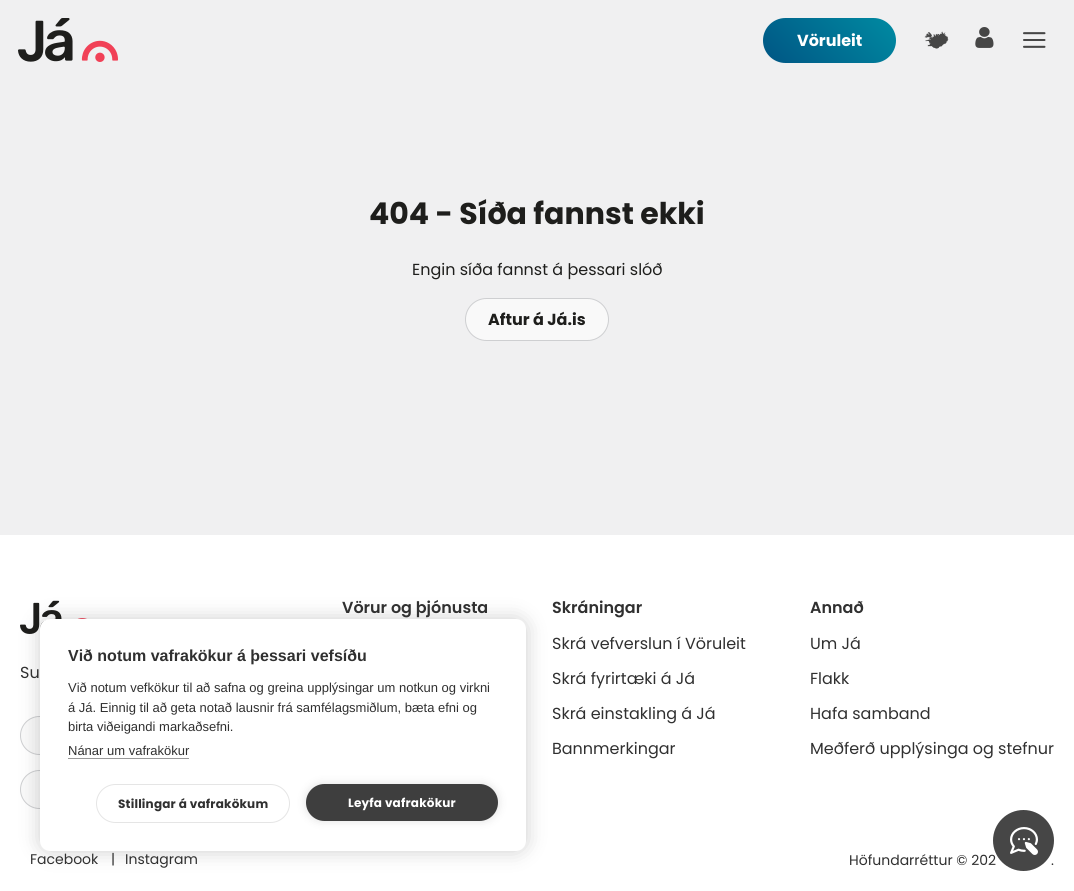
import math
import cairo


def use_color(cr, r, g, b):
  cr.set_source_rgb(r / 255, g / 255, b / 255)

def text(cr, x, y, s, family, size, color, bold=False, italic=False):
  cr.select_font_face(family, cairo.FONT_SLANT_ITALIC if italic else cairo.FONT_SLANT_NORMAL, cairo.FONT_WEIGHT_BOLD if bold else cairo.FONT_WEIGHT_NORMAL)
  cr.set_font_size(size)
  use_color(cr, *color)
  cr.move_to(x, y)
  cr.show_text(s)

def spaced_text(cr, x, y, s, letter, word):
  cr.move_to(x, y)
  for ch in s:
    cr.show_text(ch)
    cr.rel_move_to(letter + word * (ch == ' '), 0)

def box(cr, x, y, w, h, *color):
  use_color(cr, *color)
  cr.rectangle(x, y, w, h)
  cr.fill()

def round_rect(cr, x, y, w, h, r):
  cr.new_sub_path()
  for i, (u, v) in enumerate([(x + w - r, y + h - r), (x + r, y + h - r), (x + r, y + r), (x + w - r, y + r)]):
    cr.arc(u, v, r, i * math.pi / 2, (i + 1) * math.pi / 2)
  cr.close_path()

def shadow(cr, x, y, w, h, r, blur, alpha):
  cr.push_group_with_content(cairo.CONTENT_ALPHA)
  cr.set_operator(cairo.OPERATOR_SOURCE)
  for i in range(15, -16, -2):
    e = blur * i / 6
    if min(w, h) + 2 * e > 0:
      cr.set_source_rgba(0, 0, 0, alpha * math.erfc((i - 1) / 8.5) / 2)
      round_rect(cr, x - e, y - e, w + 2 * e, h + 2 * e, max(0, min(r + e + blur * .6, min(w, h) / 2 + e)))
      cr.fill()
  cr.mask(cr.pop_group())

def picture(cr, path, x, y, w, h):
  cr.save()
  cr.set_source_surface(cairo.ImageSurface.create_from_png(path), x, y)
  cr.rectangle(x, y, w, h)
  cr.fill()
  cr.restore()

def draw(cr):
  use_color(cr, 240, 240, 241)
  cr.paint()
  picture(cr, "img_01.png", 18, 18, 100, 44)
  gradient = cairo.LinearGradient(785, 85, 874, -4)
  gradient.add_color_stop_rgba(0.07, 0, 0.349, 0.525, 1)
  gradient.add_color_stop_rgba(0.93, 0, 0.529, 0.627, 1)
  cr.set_source(gradient)
  round_rect(cr, 763, 18, 133, 45, 22.5)
  cr.fill()
  picture(cr, "img_02.png", 924, 31, 25, 18)
  picture(cr, "img_03.png", 975, 27, 19, 21)
  picture(cr, "img_04.png", 1023, 32, 23, 16)
  use_color(cr, 249, 249, 249)
  round_rect(cr, 465.5, 298.5, 143, 42, 21)
  cr.fill_preserve()
  use_color(cr, 206, 207, 209)
  cr.set_line_width(1)
  cr.stroke()
  box(cr, 0, 535, 1074, 356, 255, 255, 255)
  picture(cr, "img_05.png", 20, 600, 67, 34)
  use_color(cr, 249, 249, 249)
  round_rect(cr, 20.5, 716.5, 257, 38, 19)
  cr.fill_preserve()
  use_color(cr, 206, 207, 209)
  cr.stroke()
  use_color(cr, 249, 249, 249)
  round_rect(cr, 20.5, 770.5, 257, 38, 19)
  cr.fill_preserve()
  use_color(cr, 206, 207, 209)
  cr.stroke()
  use_color(cr, 0, 0, 0)
  shadow(cr, 40, 619, 486, 232, 10, 10, 0.2)
  use_color(cr, 255, 255, 255)
  round_rect(cr, 40, 619, 486, 232, 10)
  cr.fill()
  box(cr, 68, 758, 121, 1, 153, 153, 153)
  round_rect(cr, 96.5, 784.5, 193, 38, 19)
  use_color(cr, 229, 229, 229)
  cr.stroke()
  use_color(cr, 0, 0, 0)
  shadow(cr, 306, 784, 192, 37, 18.5, 5, 0.12)
  use_color(cr, 62, 62, 62)
  round_rect(cr, 306, 784, 192, 37, 18.5)
  cr.fill()
  text(cr, 797, 46, "Vöruleit", "Poppins", 16, (255, 255, 255), bold=True)
  text(cr, 369, 224, "404 - Síða fannst ekki", "Poppins", 30, (30, 30, 28), bold=True)
  text(cr, 412, 275, "Engin síða fannst á þessari slóð", "Poppins", 16, (30, 30, 28))
  text(cr, 488, 325, "Aftur á Já.is", "Poppins", 16, (30, 30, 28), bold=True)
  text(cr, 20, 678, "Su", "Poppins", 16, (48, 48, 48))
  text(cr, 342, 613, "Vörur og þjónusta", "Poppins SemiBold", 16, (48, 48, 48))
  text(cr, 552, 613, "Skráningar", "Poppins SemiBold", 16, (48, 48, 48))
  text(cr, 552, 649, "Skrá vefverslun í Vöruleit", "Poppins", 16, (48, 48, 48))
  text(cr, 552, 684, "Skrá fyrirtæki á Já", "Poppins", 16, (48, 48, 48))
  text(cr, 552, 719, "Skrá einstakling á Já", "Poppins", 16, (48, 48, 48))
  text(cr, 552, 754, "Bannmerkingar", "Poppins", 16, (48, 48, 48))
  text(cr, 810, 613, "Annað", "Poppins SemiBold", 16, (48, 48, 48))
  text(cr, 810, 649, "Um Já", "Poppins", 16, (48, 48, 48))
  text(cr, 810, 684, "Flakk", "Poppins", 16, (48, 48, 48))
  text(cr, 810, 719, "Hafa samband", "Poppins", 16, (48, 48, 48))
  text(cr, 810, 754, "Meðferð upplýsinga og stefnur", "Poppins", 16, (48, 48, 48))
  text(cr, 30, 864, "Facebook", "Poppins", 14, (48, 48, 48))
  text(cr, 111, 864, "|", "Poppins", 14, (48, 48, 48))
  text(cr, 125, 864, "Instagram", "Poppins", 14, (48, 48, 48))
  text(cr, 849, 865, "Höfundarréttur © 202", "Poppins", 14, (48, 48, 48))
  text(cr, 1051, 865, ".", "Poppins", 14, (48, 48, 48))
  use_color(cr, 70, 70, 70)
  cr.new_path()
  cr.arc(1023.5, 840.5, 30.5, 0, 2 * math.pi)
  cr.fill()
  picture(cr, "img_06.png", 1010, 827, 28, 28)
  text(cr, 68, 661, "Við notum vafrakökur á þessari vefsíðu", "Liberation Sans", 16, (48, 48, 48), bold=True)
  text(cr, 68, 692, "Við notum vefkökur til að safna og greina upplýsingar um notkun og virkni", "Liberation Sans", 13, (48, 48, 48))
  text(cr, 68, 712, "á Já. Einnig til að geta notað lausnir frá samfélagsmiðlum, bæta efni og", "Liberation Sans", 13, (48, 48, 48))
  text(cr, 68, 731, "birta viðeigandi markaðsefni.", "Liberation Sans", 13, (48, 48, 48))
  text(cr, 68, 755, "Nánar um vafrakökur", "Liberation Sans", 13, (48, 48, 48))
  cr.select_font_face("Poppins", cairo.FONT_SLANT_NORMAL, cairo.FONT_WEIGHT_BOLD)
  cr.set_font_size(12)
  spaced_text(cr, 118, 808, "Stillingar á vafrakökum", 0.2, 0)
  use_color(cr, 255, 255, 255)
  spaced_text(cr, 348, 807, "Leyfa vafrakökur", 0.2, 0)


surface = cairo.ImageSurface(cairo.FORMAT_RGB24, 1074, 891)
cr = cairo.Context(surface)
options = cairo.FontOptions()
options.set_hint_metrics(cairo.HINT_METRICS_OFF)
options.set_hint_style(cairo.HINT_STYLE_NONE)
cr.set_font_options(options)
cr.set_miter_limit(4)
draw(cr)
surface.write_to_png("out.png")
